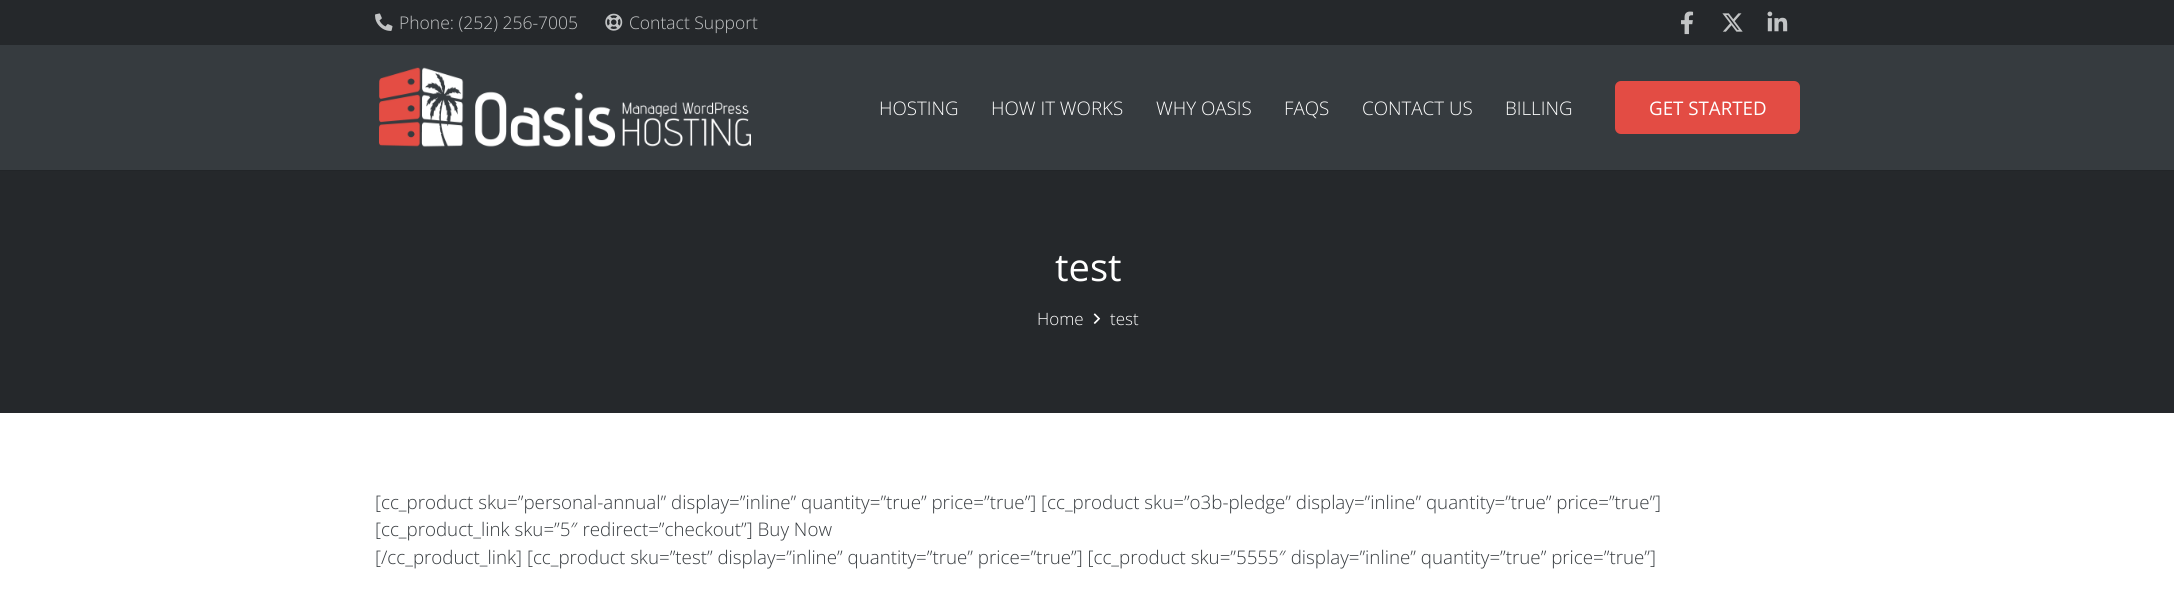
import math
import cairo


def use_color(cr, r, g, b):
  cr.set_source_rgb(r / 255, g / 255, b / 255)

def text(cr, x, y, s, family, size, color, bold=False, italic=False):
  cr.select_font_face(family, cairo.FONT_SLANT_ITALIC if italic else cairo.FONT_SLANT_NORMAL, cairo.FONT_WEIGHT_BOLD if bold else cairo.FONT_WEIGHT_NORMAL)
  cr.set_font_size(size)
  use_color(cr, *color)
  cr.move_to(x, y)
  cr.show_text(s)

def box(cr, x, y, w, h, *color):
  use_color(cr, *color)
  cr.rectangle(x, y, w, h)
  cr.fill()

def round_rect(cr, x, y, w, h, r):
  cr.new_sub_path()
  for i, (u, v) in enumerate([(x + w - r, y + h - r), (x + r, y + h - r), (x + r, y + r), (x + w - r, y + r)]):
    cr.arc(u, v, r, i * math.pi / 2, (i + 1) * math.pi / 2)
  cr.close_path()

def picture(cr, path, x, y, w, h):
  cr.save()
  cr.set_source_surface(cairo.ImageSurface.create_from_png(path), x, y)
  cr.rectangle(x, y, w, h)
  cr.fill()
  cr.restore()

def draw(cr):
  use_color(cr, 255, 255, 255)
  cr.paint()
  box(cr, 0, 0, 2174, 413, 37, 40, 43)
  picture(cr, "img_01.png", 375, 13, 18, 18)
  picture(cr, "img_02.png", 605, 13, 18, 18)
  picture(cr, "img_03.png", 1681, 11, 13, 24)
  picture(cr, "img_04.png", 1722, 13, 21, 19)
  picture(cr, "img_05.png", 1767, 11, 21, 21)
  box(cr, 0, 170, 2174, 1, 34, 37, 40)
  box(cr, 0, 45, 2174, 125, 54, 59, 63)
  picture(cr, "img_06.png", 379, 67, 372, 80)
  use_color(cr, 227, 76, 68)
  round_rect(cr, 1615, 81, 185, 53, 6)
  cr.fill()
  picture(cr, "img_07.png", 1093, 313, 8, 11)
  text(cr, 399, 29, "Phone: (252) 256-7005", "Open Sans Light", 17.5, (194, 196, 197))
  text(cr, 629, 29, "Contact Support", "Open Sans Light", 17.5, (194, 196, 197))
  text(cr, 879, 115, "HOSTING", "Open Sans Light", 18.75, (255, 255, 255))
  text(cr, 991, 115, "HOW IT WORKS", "Open Sans Light", 18.75, (255, 255, 255))
  text(cr, 1156, 115, "WHY OASIS", "Open Sans Light", 18.75, (255, 255, 255))
  text(cr, 1284, 115, "FAQS", "Open Sans Light", 18.75, (255, 255, 255))
  text(cr, 1362, 115, "CONTACT US", "Open Sans Light", 18.75, (255, 255, 255))
  text(cr, 1505, 115, "BILLING", "Open Sans Light", 18.75, (255, 255, 255))
  text(cr, 1649, 115, "GET STARTED", "Open Sans", 18.75, (255, 255, 255))
  text(cr, 1055, 281, "test", "Open Sans", 38, (255, 255, 255))
  text(cr, 1037, 325, "Home", "Open Sans Light", 17, (255, 255, 255))
  text(cr, 1110, 325, "test", "Open Sans Light", 17, (255, 255, 255))
  text(cr, 375, 509, "[cc_product sku=”personal-annual” display=”inline” quantity=”true” price=”true”] [cc_product sku=”o3b-pledge” display=”inline” quantity=”true” price=”true”]", "Open Sans Light", 18.75, (54, 59, 63))
  text(cr, 375, 536, "[cc_product_link sku=”5″ redirect=”checkout”] Buy Now", "Open Sans Light", 18.75, (54, 59, 63))
  text(cr, 375, 564, "[/cc_product_link] [cc_product sku=”test” display=”inline” quantity=”true” price=”true”] [cc_product sku=”5555″ display=”inline” quantity=”true” price=”true”]", "Open Sans Light", 18.75, (54, 59, 63))


surface = cairo.ImageSurface(cairo.FORMAT_RGB24, 2174, 597)
cr = cairo.Context(surface)
options = cairo.FontOptions()
options.set_hint_metrics(cairo.HINT_METRICS_OFF)
options.set_hint_style(cairo.HINT_STYLE_NONE)
cr.set_font_options(options)
cr.set_miter_limit(4)
draw(cr)
surface.write_to_png("out.png")
